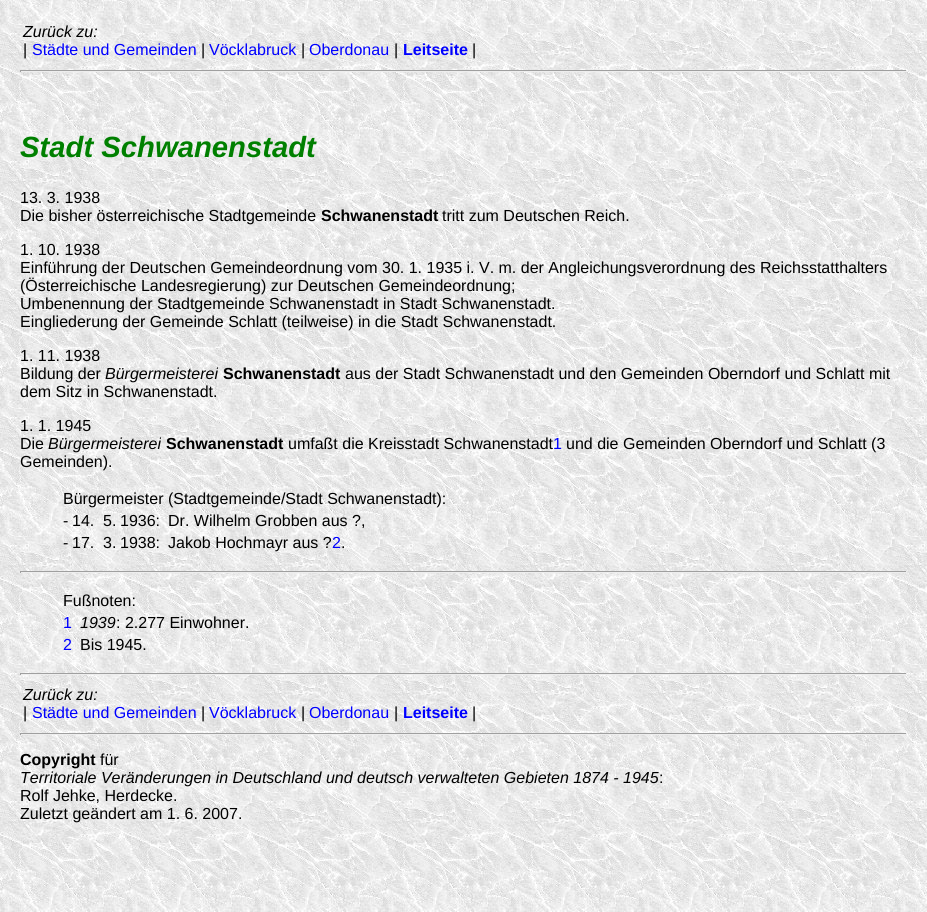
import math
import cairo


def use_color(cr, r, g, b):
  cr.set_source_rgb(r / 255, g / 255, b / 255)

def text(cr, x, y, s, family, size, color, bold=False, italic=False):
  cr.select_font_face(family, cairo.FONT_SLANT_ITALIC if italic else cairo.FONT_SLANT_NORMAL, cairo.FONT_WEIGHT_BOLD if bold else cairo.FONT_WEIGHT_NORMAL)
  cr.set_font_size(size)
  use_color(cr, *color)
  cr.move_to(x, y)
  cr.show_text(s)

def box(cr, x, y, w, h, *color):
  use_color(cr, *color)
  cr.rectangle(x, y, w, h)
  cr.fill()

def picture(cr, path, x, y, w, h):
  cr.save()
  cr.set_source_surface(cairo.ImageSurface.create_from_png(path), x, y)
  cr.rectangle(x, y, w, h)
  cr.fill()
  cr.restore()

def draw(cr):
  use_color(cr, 255, 255, 255)
  cr.paint()
  picture(cr, "img_01.png", 0, 0, 927, 912)
  box(cr, 20, 70, 887, 1, 159, 159, 159)
  box(cr, 906, 70, 1, 2, 238, 238, 238)
  box(cr, 20, 71, 887, 1, 238, 238, 238)
  box(cr, 20, 70, 1, 2, 159, 159, 159)
  box(cr, 20, 571, 887, 1, 159, 159, 159)
  box(cr, 906, 571, 1, 2, 238, 238, 238)
  box(cr, 20, 572, 887, 1, 238, 238, 238)
  box(cr, 20, 571, 1, 2, 159, 159, 159)
  box(cr, 20, 673, 887, 1, 159, 159, 159)
  box(cr, 906, 673, 1, 2, 238, 238, 238)
  box(cr, 20, 674, 887, 1, 238, 238, 238)
  box(cr, 20, 673, 1, 2, 159, 159, 159)
  box(cr, 20, 733, 887, 1, 159, 159, 159)
  box(cr, 906, 733, 1, 2, 238, 238, 238)
  box(cr, 20, 734, 887, 1, 238, 238, 238)
  box(cr, 20, 733, 1, 2, 159, 159, 159)
  text(cr, 23, 37, "Zurück zu:", "Liberation Sans", 16, (0, 0, 0), italic=True)
  text(cr, 23, 55, "|", "Liberation Sans", 16, (0, 0, 0))
  text(cr, 32, 55, "Städte und Gemeinden", "Liberation Sans", 16, (0, 0, 255))
  text(cr, 201, 55, "|", "Liberation Sans", 16, (0, 0, 0))
  text(cr, 209, 55, "Vöcklabruck", "Liberation Sans", 16, (0, 0, 255))
  text(cr, 301, 55, "|", "Liberation Sans", 16, (0, 0, 0))
  text(cr, 309, 55, "Oberdonau", "Liberation Sans", 16, (0, 0, 255))
  text(cr, 394, 55, "|", "Liberation Sans", 16, (0, 0, 0))
  text(cr, 403, 55, "Leitseite", "Liberation Sans", 16, (0, 0, 255), bold=True)
  text(cr, 472, 55, "|", "Liberation Sans", 16, (0, 0, 0))
  text(cr, 20, 157, "Stadt Schwanenstadt", "Liberation Sans", 29.25, (0, 128, 0), bold=True, italic=True)
  text(cr, 20, 203, "13. 3. 1938", "Liberation Sans", 16, (0, 0, 0))
  text(cr, 20, 221, "Die bisher österreichische Stadtgemeinde", "Liberation Sans", 16, (0, 0, 0))
  text(cr, 321, 221, "Schwanenstadt", "Liberation Sans", 16, (0, 0, 0), bold=True)
  text(cr, 442, 221, "tritt zum Deutschen Reich.", "Liberation Sans", 16, (0, 0, 0))
  text(cr, 20, 255, "1. 10. 1938", "Liberation Sans", 16, (0, 0, 0))
  text(cr, 20, 273, "Einführung der Deutschen Gemeindeordnung vom 30. 1. 1935 i. V. m. der Angleichungsverordnung des Reichsstatthalters", "Liberation Sans", 16, (0, 0, 0))
  text(cr, 20, 291, "(Österreichische Landesregierung) zur Deutschen Gemeindeordnung;", "Liberation Sans", 16, (0, 0, 0))
  text(cr, 20, 309, "Umbenennung der Stadtgemeinde Schwanenstadt in Stadt Schwanenstadt.", "Liberation Sans", 16, (0, 0, 0))
  text(cr, 20, 327, "Eingliederung der Gemeinde Schlatt (teilweise) in die Stadt Schwanenstadt.", "Liberation Sans", 16, (0, 0, 0))
  text(cr, 20, 361, "1. 11. 1938", "Liberation Sans", 16, (0, 0, 0))
  text(cr, 20, 379, "Bildung der", "Liberation Sans", 16, (0, 0, 0))
  text(cr, 105, 379, "Bürgermeisterei", "Liberation Sans", 16, (0, 0, 0), italic=True)
  text(cr, 223, 379, "Schwanenstadt", "Liberation Sans", 16, (0, 0, 0), bold=True)
  text(cr, 345, 379, "aus der Stadt Schwanenstadt und den Gemeinden Oberndorf und Schlatt mit", "Liberation Sans", 16, (0, 0, 0))
  text(cr, 20, 397, "dem Sitz in Schwanenstadt.", "Liberation Sans", 16, (0, 0, 0))
  text(cr, 20, 431, "1. 1. 1945", "Liberation Sans", 16, (0, 0, 0))
  text(cr, 20, 449, "Die", "Liberation Sans", 16, (0, 0, 0))
  text(cr, 48, 449, "Bürgermeisterei", "Liberation Sans", 16, (0, 0, 0), italic=True)
  text(cr, 166, 449, "Schwanenstadt", "Liberation Sans", 16, (0, 0, 0), bold=True)
  text(cr, 288, 449, "umfaßt die Kreisstadt Schwanenstadt", "Liberation Sans", 16, (0, 0, 0))
  text(cr, 553, 449, "1", "Liberation Sans", 16, (0, 0, 255))
  text(cr, 566, 449, "und die Gemeinden Oberndorf und Schlatt (3", "Liberation Sans", 16, (0, 0, 0))
  text(cr, 20, 467, "Gemeinden).", "Liberation Sans", 16, (0, 0, 0))
  text(cr, 63, 504, "Bürgermeister (Stadtgemeinde/Stadt Schwanenstadt):", "Liberation Sans", 16, (0, 0, 0))
  text(cr, 63, 526, "-", "Liberation Sans", 16, (0, 0, 0))
  text(cr, 72, 526, "14.", "Liberation Sans", 16, (0, 0, 0))
  text(cr, 103, 526, "5.", "Liberation Sans", 16, (0, 0, 0))
  text(cr, 120, 526, "1936:", "Liberation Sans", 16, (0, 0, 0))
  text(cr, 168, 526, "Dr. Wilhelm Grobben aus ?,", "Liberation Sans", 16, (0, 0, 0))
  text(cr, 63, 548, "-", "Liberation Sans", 16, (0, 0, 0))
  text(cr, 72, 548, "17.", "Liberation Sans", 16, (0, 0, 0))
  text(cr, 103, 548, "3.", "Liberation Sans", 16, (0, 0, 0))
  text(cr, 120, 548, "1938:", "Liberation Sans", 16, (0, 0, 0))
  text(cr, 168, 548, "Jakob Hochmayr aus ?", "Liberation Sans", 16, (0, 0, 0))
  text(cr, 332, 548, "2", "Liberation Sans", 16, (0, 0, 255))
  text(cr, 341, 548, ".", "Liberation Sans", 16, (0, 0, 0))
  text(cr, 63, 606, "Fußnoten:", "Liberation Sans", 16, (0, 0, 0))
  text(cr, 63, 628, "1", "Liberation Sans", 16, (0, 0, 255))
  text(cr, 80, 628, "1939", "Liberation Sans", 16, (0, 0, 0), italic=True)
  text(cr, 116, 628, ": 2.277 Einwohner.", "Liberation Sans", 16, (0, 0, 0))
  text(cr, 63, 650, "2", "Liberation Sans", 16, (0, 0, 255))
  text(cr, 80, 650, "Bis 1945.", "Liberation Sans", 16, (0, 0, 0))
  text(cr, 23, 700, "Zurück zu:", "Liberation Sans", 16, (0, 0, 0), italic=True)
  text(cr, 23, 718, "|", "Liberation Sans", 16, (0, 0, 0))
  text(cr, 32, 718, "Städte und Gemeinden", "Liberation Sans", 16, (0, 0, 255))
  text(cr, 201, 718, "|", "Liberation Sans", 16, (0, 0, 0))
  text(cr, 209, 718, "Vöcklabruck", "Liberation Sans", 16, (0, 0, 255))
  text(cr, 301, 718, "|", "Liberation Sans", 16, (0, 0, 0))
  text(cr, 309, 718, "Oberdonau", "Liberation Sans", 16, (0, 0, 255))
  text(cr, 394, 718, "|", "Liberation Sans", 16, (0, 0, 0))
  text(cr, 403, 718, "Leitseite", "Liberation Sans", 16, (0, 0, 255), bold=True)
  text(cr, 472, 718, "|", "Liberation Sans", 16, (0, 0, 0))
  text(cr, 20, 765, "Copyright", "Liberation Sans", 16, (0, 0, 0), bold=True)
  text(cr, 100, 765, "für", "Liberation Sans", 16, (0, 0, 0))
  text(cr, 20, 783, "Territoriale Veränderungen in Deutschland und deutsch verwalteten Gebieten 1874 - 1945", "Liberation Sans", 16, (0, 0, 0), italic=True)
  text(cr, 659, 783, ":", "Liberation Sans", 16, (0, 0, 0))
  text(cr, 20, 801, "Rolf Jehke, Herdecke.", "Liberation Sans", 16, (0, 0, 0))
  text(cr, 20, 819, "Zuletzt geändert am 1. 6. 2007.", "Liberation Sans", 16, (0, 0, 0))


surface = cairo.ImageSurface(cairo.FORMAT_RGB24, 927, 912)
cr = cairo.Context(surface)
options = cairo.FontOptions()
options.set_hint_metrics(cairo.HINT_METRICS_OFF)
options.set_hint_style(cairo.HINT_STYLE_NONE)
cr.set_font_options(options)
cr.set_miter_limit(4)
draw(cr)
surface.write_to_png("out.png")
